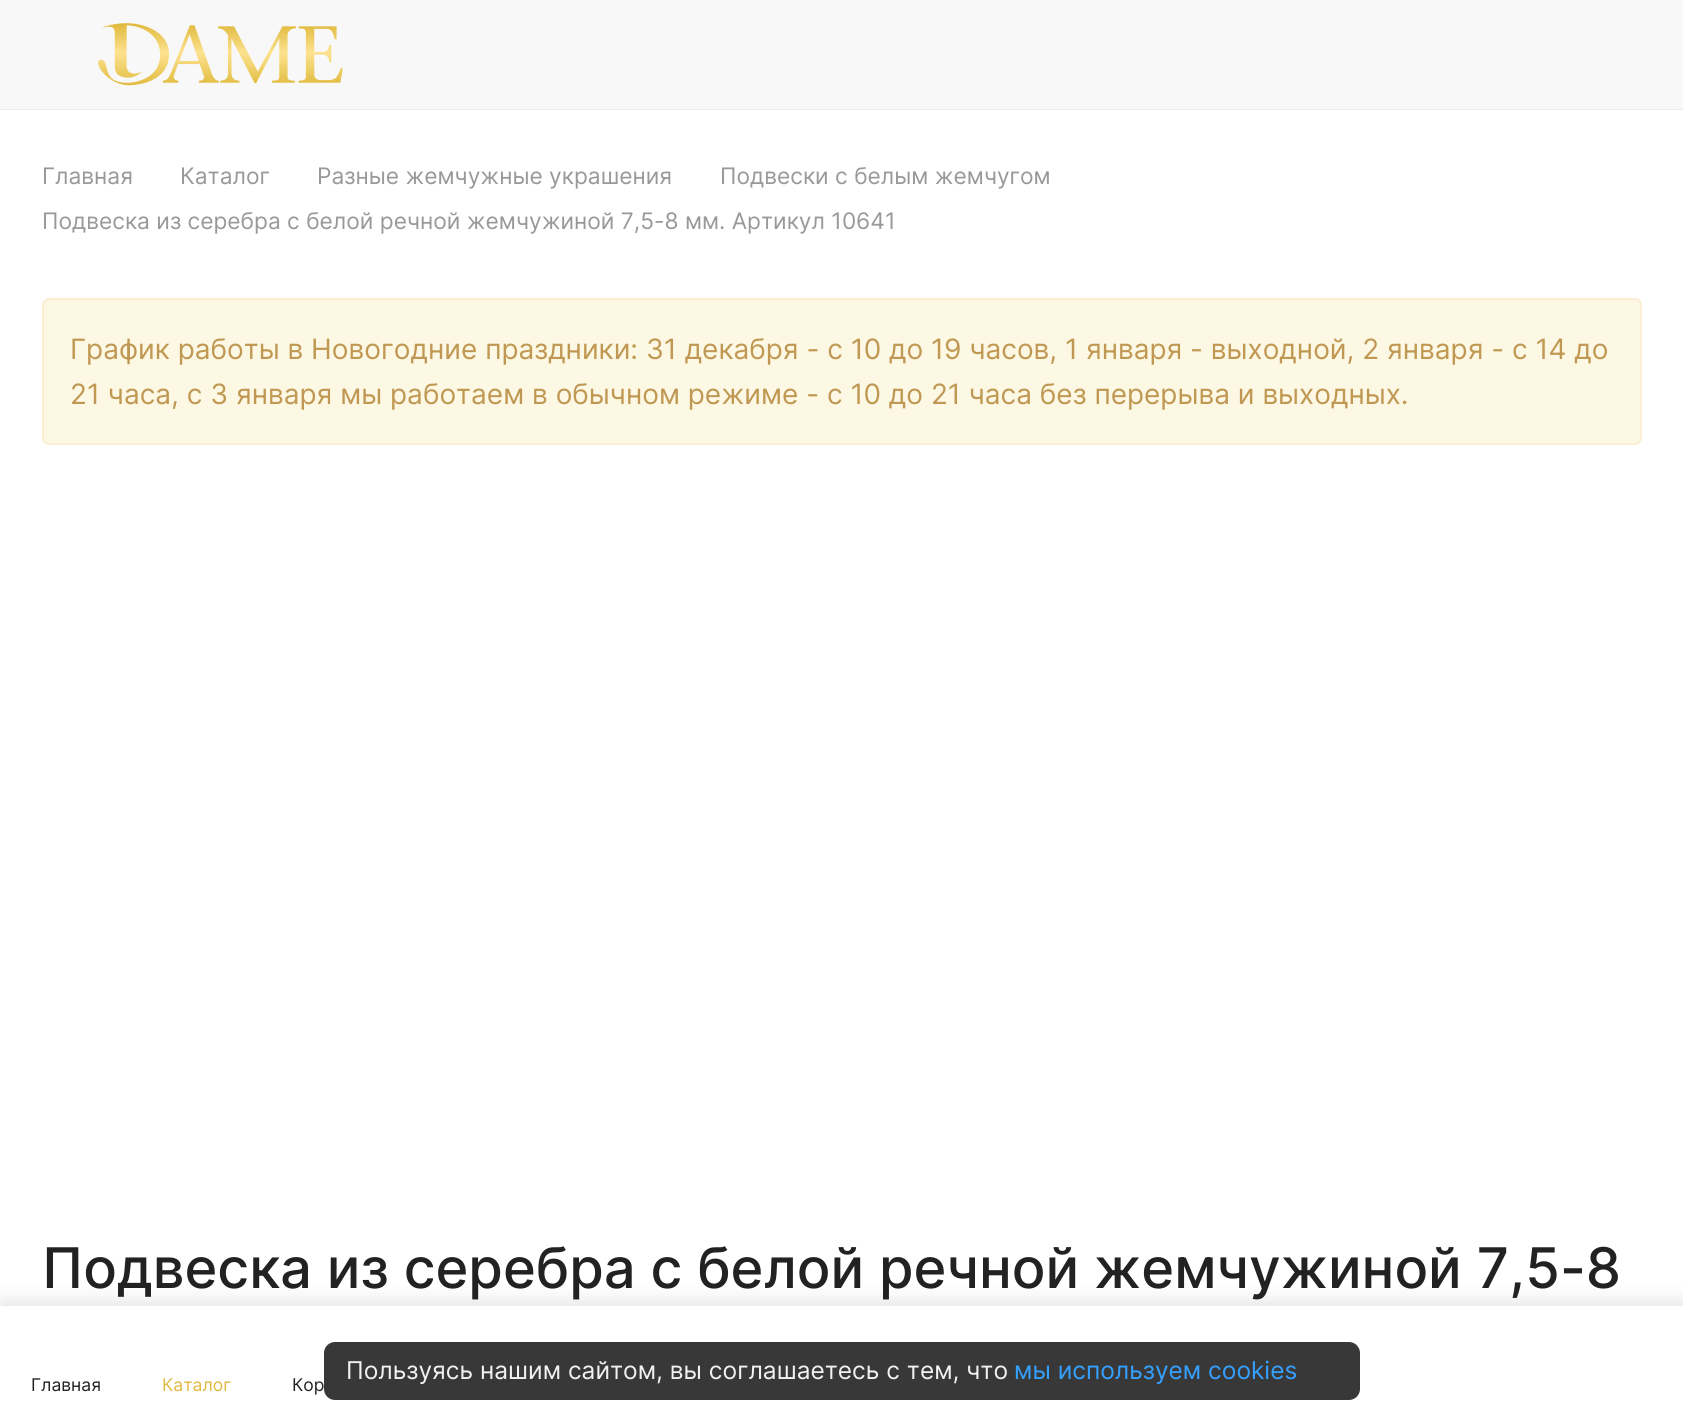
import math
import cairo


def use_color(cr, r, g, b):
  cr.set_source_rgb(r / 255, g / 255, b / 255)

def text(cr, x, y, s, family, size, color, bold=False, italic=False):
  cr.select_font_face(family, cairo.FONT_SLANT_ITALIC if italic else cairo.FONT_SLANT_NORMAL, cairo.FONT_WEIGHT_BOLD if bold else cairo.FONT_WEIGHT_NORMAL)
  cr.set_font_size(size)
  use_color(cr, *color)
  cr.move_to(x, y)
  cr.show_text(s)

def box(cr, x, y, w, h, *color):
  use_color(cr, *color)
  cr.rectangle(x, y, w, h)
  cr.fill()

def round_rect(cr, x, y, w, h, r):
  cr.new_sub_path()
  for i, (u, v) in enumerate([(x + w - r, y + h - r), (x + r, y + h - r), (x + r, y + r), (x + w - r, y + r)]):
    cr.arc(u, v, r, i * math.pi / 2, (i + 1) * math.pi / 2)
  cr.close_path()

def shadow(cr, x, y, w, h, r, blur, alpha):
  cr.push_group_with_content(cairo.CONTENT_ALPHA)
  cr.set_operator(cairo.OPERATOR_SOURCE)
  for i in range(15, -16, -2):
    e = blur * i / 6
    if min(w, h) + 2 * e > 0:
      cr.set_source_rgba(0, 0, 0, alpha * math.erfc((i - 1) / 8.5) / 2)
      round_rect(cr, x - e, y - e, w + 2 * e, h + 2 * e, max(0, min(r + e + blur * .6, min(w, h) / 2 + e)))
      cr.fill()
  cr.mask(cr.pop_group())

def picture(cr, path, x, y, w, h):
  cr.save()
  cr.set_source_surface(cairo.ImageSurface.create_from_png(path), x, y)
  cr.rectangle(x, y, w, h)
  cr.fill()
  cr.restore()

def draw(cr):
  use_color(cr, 255, 255, 255)
  cr.paint()
  use_color(cr, 237, 237, 237)
  cr.new_path()
  cr.move_to(0, 108)
  cr.line_to(0, 110)
  cr.line_to(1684, 110)
  cr.line_to(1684, 2)
  cr.line_to(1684, 108)
  cr.close_path()
  cr.fill()
  box(cr, 0, 0, 1683, 109, 248, 248, 248)
  picture(cr, "img_01.png", 98, 23, 245, 63)
  use_color(cr, 252, 248, 227)
  round_rect(cr, 43, 299, 1598, 145, 6)
  cr.fill_preserve()
  use_color(cr, 251, 238, 213)
  cr.stroke()
  use_color(cr, 0, 0, 0)
  shadow(cr, 0, 1300, 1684, 107, 0, 9, 0.1)
  box(cr, 0, 1306, 1683, 106, 255, 255, 255)
  cr.set_source_rgba(0, 0, 0, 0.78)
  round_rect(cr, 324, 1342, 1036, 58, 11)
  cr.fill()
  text(cr, 42, 184, "Главная", "Inter", 22.75, (153, 153, 153))
  text(cr, 180, 184, "Каталог", "Inter", 22.75, (153, 153, 153))
  text(cr, 317, 184, "Разные жемчужные украшения", "Inter", 22.75, (153, 153, 153))
  text(cr, 720, 184, "Подвески с белым жемчугом", "Inter", 22.75, (153, 153, 153))
  text(cr, 42, 229, "Подвеска из серебра с белой речной жемчужиной 7,5-8 мм. Артикул 10641", "Inter", 22.75, (153, 153, 153))
  text(cr, 70, 359, "График работы в Новогодние праздники: 31 декабря - с 10 до 19 часов, 1 января - выходной, 2 января - с 14 до", "Inter", 28, (192, 152, 83))
  text(cr, 70, 404, "21 часа, с 3 января мы работаем в обычном режиме - с 10 до 21 часа без перерыва и выходных.", "Inter", 28, (192, 152, 83))
  text(cr, 42, 1288, "Подвеска из серебра с белой речной жемчужиной 7,5-8", "Inter Medium", 56, (34, 34, 34))
  text(cr, 346, 1379, "Пользуясь нашим сайтом, вы соглашаетесь с тем, что", "Inter", 24.5, (241, 241, 241))
  text(cr, 1014, 1379, "мы используем cookies", "Inter", 24.5, (52, 160, 255))
  text(cr, 31, 1391, "Главная", "Inter", 17.5, (34, 34, 34))
  text(cr, 162, 1391, "Каталог", "Inter", 17.5, (223, 185, 63))
  text(cr, 292, 1391, "Кор", "Inter", 17.5, (34, 34, 34))


surface = cairo.ImageSurface(cairo.FORMAT_RGB24, 1683, 1412)
cr = cairo.Context(surface)
options = cairo.FontOptions()
options.set_hint_metrics(cairo.HINT_METRICS_OFF)
options.set_hint_style(cairo.HINT_STYLE_NONE)
cr.set_font_options(options)
cr.set_miter_limit(4)
draw(cr)
surface.write_to_png("out.png")
